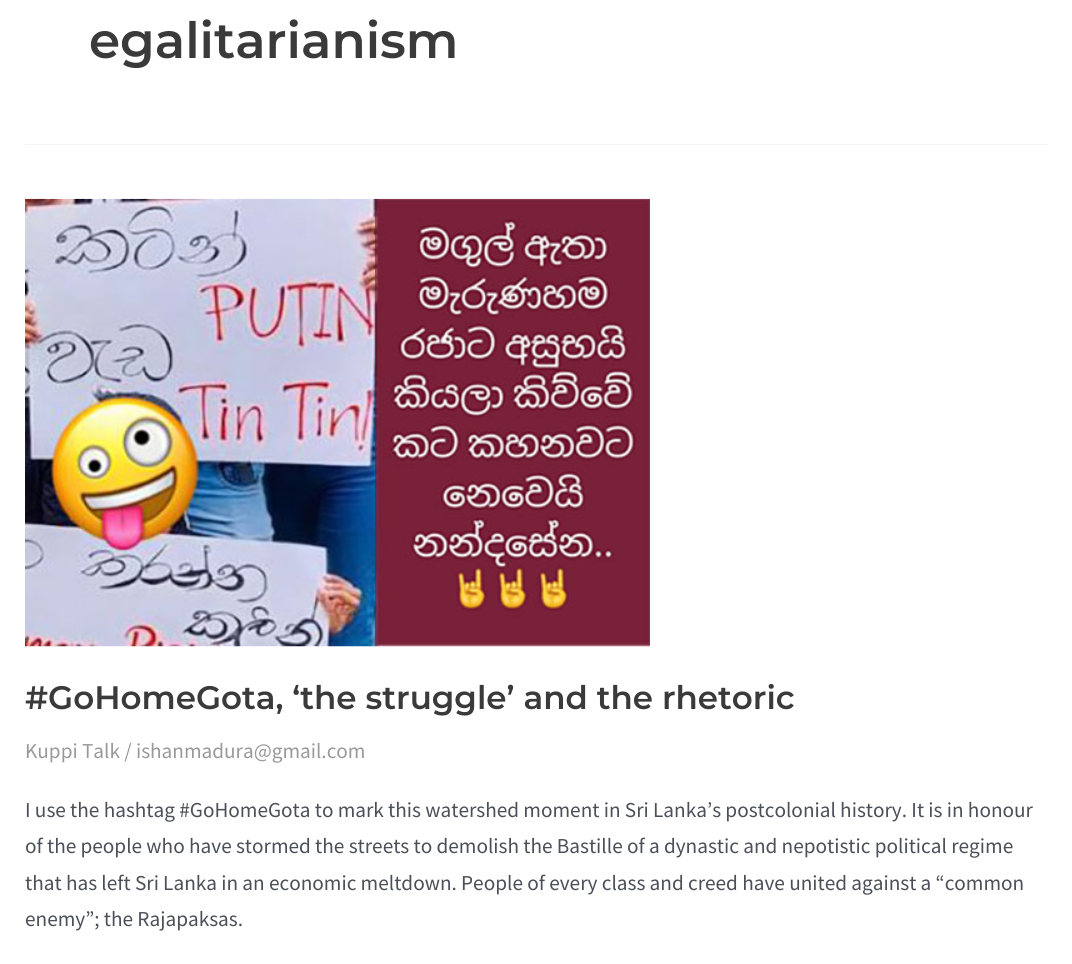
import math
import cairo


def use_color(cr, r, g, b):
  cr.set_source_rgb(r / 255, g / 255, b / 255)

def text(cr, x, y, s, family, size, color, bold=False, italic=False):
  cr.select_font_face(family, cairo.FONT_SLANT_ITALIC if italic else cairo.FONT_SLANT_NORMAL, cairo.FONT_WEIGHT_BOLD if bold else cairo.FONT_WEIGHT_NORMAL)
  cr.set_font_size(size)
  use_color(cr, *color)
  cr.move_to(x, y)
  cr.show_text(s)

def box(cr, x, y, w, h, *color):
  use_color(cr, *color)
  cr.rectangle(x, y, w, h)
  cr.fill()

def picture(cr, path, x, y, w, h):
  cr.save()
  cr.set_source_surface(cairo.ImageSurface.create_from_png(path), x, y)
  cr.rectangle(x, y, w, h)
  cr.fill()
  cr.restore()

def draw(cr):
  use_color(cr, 255, 255, 255)
  cr.paint()
  box(cr, 25, 144, 1023, 1, 242, 245, 247)
  picture(cr, "img_01.png", 25, 198, 625, 449)
  text(cr, 89, 58, "egalitarianism", "Montserrat SemiBold", 50, (58, 58, 58))
  text(cr, 25, 709, "#GoHomeGota, ‘the struggle’ and the rhetoric", "Montserrat SemiBold", 32.5, (58, 58, 58))
  text(cr, 25, 758, "Kuppi Talk / ishanmadura@gmail.com", "Source Sans Pro", 21.25, (153, 153, 153))
  text(cr, 25, 817, "I use the hashtag #GoHomeGota to mark this watershed moment in Sri Lanka’s postcolonial history. It is in honour", "Source Sans Pro", 21.25, (75, 79, 88))
  text(cr, 25, 853, "of the people who have stormed the streets to demolish the Bastille of a dynastic and nepotistic political regime", "Source Sans Pro", 21.25, (75, 79, 88))
  text(cr, 25, 890, "that has left Sri Lanka in an economic meltdown. People of every class and creed have united against a “common", "Source Sans Pro", 21.25, (75, 79, 88))
  text(cr, 25, 926, "enemy”; the Rajapaksas.", "Source Sans Pro", 21.25, (75, 79, 88))


surface = cairo.ImageSurface(cairo.FORMAT_RGB24, 1072, 964)
cr = cairo.Context(surface)
options = cairo.FontOptions()
options.set_hint_metrics(cairo.HINT_METRICS_OFF)
options.set_hint_style(cairo.HINT_STYLE_NONE)
cr.set_font_options(options)
cr.set_miter_limit(4)
draw(cr)
surface.write_to_png("out.png")
